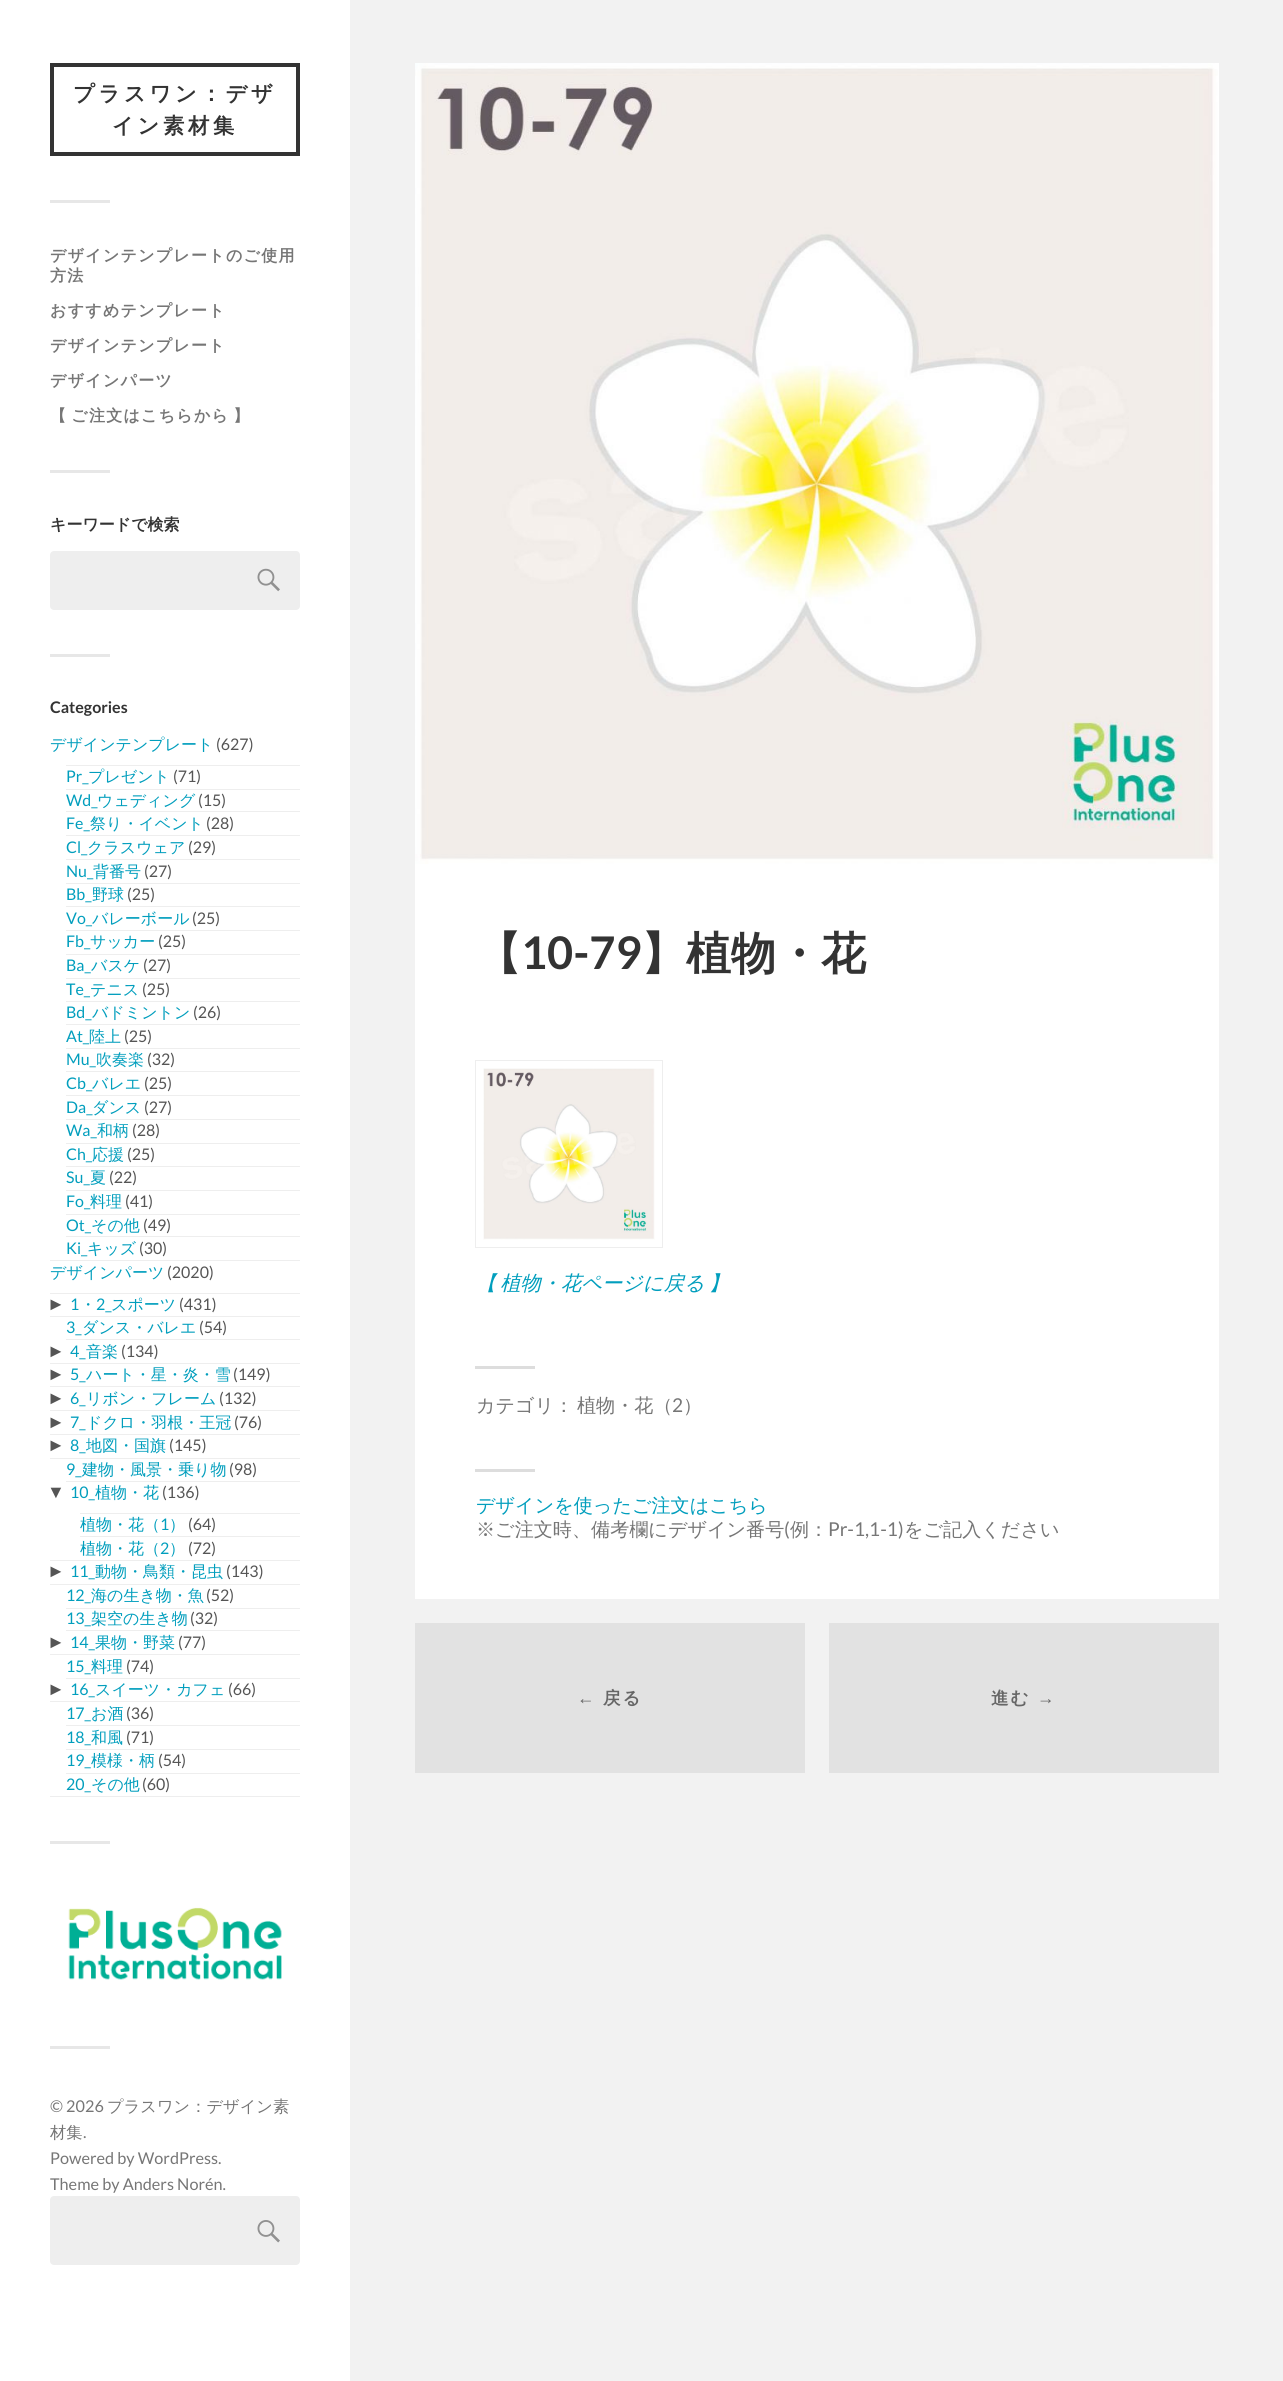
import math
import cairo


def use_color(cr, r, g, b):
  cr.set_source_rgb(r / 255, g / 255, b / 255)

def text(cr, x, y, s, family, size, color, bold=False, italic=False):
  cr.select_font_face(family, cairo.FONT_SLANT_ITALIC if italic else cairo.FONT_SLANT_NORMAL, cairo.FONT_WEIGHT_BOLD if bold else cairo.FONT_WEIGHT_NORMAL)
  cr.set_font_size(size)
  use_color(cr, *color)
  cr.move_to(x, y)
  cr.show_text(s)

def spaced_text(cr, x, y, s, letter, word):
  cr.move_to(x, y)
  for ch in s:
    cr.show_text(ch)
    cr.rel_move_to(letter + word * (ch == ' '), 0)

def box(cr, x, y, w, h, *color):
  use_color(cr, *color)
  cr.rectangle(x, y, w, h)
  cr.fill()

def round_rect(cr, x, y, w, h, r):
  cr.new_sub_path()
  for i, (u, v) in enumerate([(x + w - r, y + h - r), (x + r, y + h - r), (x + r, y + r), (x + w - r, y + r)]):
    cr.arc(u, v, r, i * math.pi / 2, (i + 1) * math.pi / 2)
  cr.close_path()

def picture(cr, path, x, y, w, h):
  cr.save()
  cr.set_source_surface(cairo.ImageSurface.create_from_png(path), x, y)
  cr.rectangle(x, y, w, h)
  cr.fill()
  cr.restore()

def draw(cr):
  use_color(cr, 242, 242, 242)
  cr.paint()
  box(cr, 0, 0, 350, 2381, 255, 255, 255)
  cr.rectangle(52, 65, 246, 89)
  use_color(cr, 51, 51, 51)
  cr.set_line_width(4)
  cr.stroke()
  box(cr, 50, 200, 60, 3, 231, 231, 231)
  box(cr, 50, 470, 60, 3, 231, 231, 231)
  use_color(cr, 238, 238, 238)
  round_rect(cr, 50, 551, 250, 59, 4)
  cr.fill()
  picture(cr, "img_01.png", 257, 568, 23, 24)
  box(cr, 50, 654, 60, 3, 231, 231, 231)
  box(cr, 50, 1260, 250, 1, 238, 238, 238)
  box(cr, 66, 765, 234, 1, 238, 238, 238)
  box(cr, 66, 789, 234, 1, 238, 238, 238)
  box(cr, 66, 811, 234, 1, 238, 238, 238)
  box(cr, 66, 835, 234, 1, 238, 238, 238)
  box(cr, 66, 859, 234, 1, 238, 238, 238)
  box(cr, 66, 883, 234, 1, 238, 238, 238)
  box(cr, 66, 906, 234, 1, 238, 238, 238)
  box(cr, 66, 930, 234, 1, 238, 238, 238)
  box(cr, 66, 954, 234, 1, 238, 238, 238)
  box(cr, 66, 978, 234, 1, 238, 238, 238)
  box(cr, 66, 1001, 234, 1, 238, 238, 238)
  box(cr, 66, 1024, 234, 1, 238, 238, 238)
  box(cr, 66, 1048, 234, 1, 238, 238, 238)
  box(cr, 66, 1071, 234, 1, 238, 238, 238)
  box(cr, 66, 1095, 234, 1, 238, 238, 238)
  box(cr, 66, 1119, 234, 1, 238, 238, 238)
  box(cr, 66, 1143, 234, 1, 238, 238, 238)
  box(cr, 66, 1166, 234, 1, 238, 238, 238)
  box(cr, 66, 1190, 234, 1, 238, 238, 238)
  box(cr, 66, 1214, 234, 1, 238, 238, 238)
  box(cr, 66, 1236, 234, 1, 238, 238, 238)
  box(cr, 50, 1796, 250, 1, 238, 238, 238)
  box(cr, 50, 1293, 250, 1, 238, 238, 238)
  box(cr, 50, 1316, 250, 1, 238, 238, 238)
  box(cr, 66, 1339, 234, 1, 238, 238, 238)
  box(cr, 50, 1363, 250, 1, 238, 238, 238)
  box(cr, 50, 1386, 250, 1, 238, 238, 238)
  box(cr, 50, 1410, 250, 1, 238, 238, 238)
  box(cr, 50, 1434, 250, 1, 238, 238, 238)
  box(cr, 50, 1458, 250, 1, 238, 238, 238)
  box(cr, 66, 1481, 234, 1, 238, 238, 238)
  box(cr, 50, 1560, 250, 1, 238, 238, 238)
  box(cr, 80, 1513, 220, 1, 238, 238, 238)
  box(cr, 80, 1536, 220, 1, 238, 238, 238)
  box(cr, 50, 1584, 250, 1, 238, 238, 238)
  box(cr, 66, 1608, 234, 1, 238, 238, 238)
  box(cr, 66, 1630, 234, 1, 238, 238, 238)
  box(cr, 50, 1654, 250, 1, 238, 238, 238)
  box(cr, 66, 1678, 234, 1, 238, 238, 238)
  box(cr, 50, 1701, 250, 1, 238, 238, 238)
  box(cr, 66, 1725, 234, 1, 238, 238, 238)
  box(cr, 66, 1749, 234, 1, 238, 238, 238)
  box(cr, 66, 1773, 234, 1, 238, 238, 238)
  box(cr, 50, 1841, 60, 3, 231, 231, 231)
  picture(cr, "img_02.png", 68, 1907, 214, 73)
  box(cr, 50, 2046, 60, 3, 231, 231, 231)
  use_color(cr, 238, 238, 238)
  round_rect(cr, 50, 2196, 250, 69, 4)
  cr.fill()
  picture(cr, "img_03.png", 257, 2220, 23, 23)
  box(cr, 415, 63, 804, 1536, 255, 255, 255)
  picture(cr, "img_04.png", 415, 63, 803, 801)
  cr.rectangle(475.5, 1060.5, 187, 187)
  use_color(cr, 238, 238, 238)
  cr.set_line_width(1)
  cr.stroke()
  picture(cr, "img_05.png", 483, 1068, 172, 172)
  box(cr, 475, 1366, 60, 3, 221, 221, 221)
  box(cr, 475, 1469, 60, 3, 221, 221, 221)
  box(cr, 415, 1623, 390, 150, 226, 226, 226)
  box(cr, 829, 1623, 390, 150, 226, 226, 226)
  cr.select_font_face("WenQuanYi Zen Hei", cairo.FONT_SLANT_NORMAL, cairo.FONT_WEIGHT_BOLD)
  cr.set_font_size(21.25)
  use_color(cr, 51, 51, 51)
  spaced_text(cr, 73, 101, "プラスワン：デザ", 3.75, 0)
  spaced_text(cr, 112, 133, "イン素材集", 3.75, 0)
  cr.set_font_size(16)
  use_color(cr, 118, 118, 118)
  spaced_text(cr, 50, 261, "デザインテンプレートのご使用", 1.25, 0)
  spaced_text(cr, 50, 281, "方法", 1.25, 0)
  spaced_text(cr, 50, 316, "おすすめテンプレート", 1.25, 0)
  spaced_text(cr, 50, 351, "デザインテンプレート", 1.25, 0)
  spaced_text(cr, 50, 386, "デザインパーツ", 1.25, 0)
  spaced_text(cr, 50, 421, "【 ご注文はこちらから 】", 1.25, -2)
  text(cr, 50, 530, "キーワードで検索", "WenQuanYi Zen Hei", 16, (51, 51, 51), bold=True)
  text(cr, 50, 713, "Categories", "Lato", 16, (51, 51, 51), bold=True)
  text(cr, 50, 750, "デザインテンプレート", "WenQuanYi Zen Hei Medium", 16, (1, 158, 189))
  text(cr, 216, 750, "(627)", "Lato", 16, (85, 85, 85))
  text(cr, 66, 782, "Pr_", "Lato", 16, (1, 158, 189))
  text(cr, 88, 782, "プレゼント", "WenQuanYi Zen Hei Medium", 16, (1, 158, 189))
  text(cr, 173, 782, "(71)", "Lato", 16, (85, 85, 85))
  text(cr, 66, 806, "Wd_", "Lato", 16, (1, 158, 189))
  text(cr, 97, 806, "ウェディング", "WenQuanYi Zen Hei Medium", 16, (1, 158, 189))
  text(cr, 198, 806, "(15)", "Lato", 16, (85, 85, 85))
  text(cr, 66, 829, "Fe_", "Lato", 16, (1, 158, 189))
  text(cr, 90, 829, "祭り・イベント", "WenQuanYi Zen Hei Medium", 16, (1, 158, 189))
  text(cr, 206, 829, "(28)", "Lato", 16, (85, 85, 85))
  text(cr, 66, 853, "Cl_", "Lato", 16, (1, 158, 189))
  text(cr, 87, 853, "クラスウェア", "WenQuanYi Zen Hei Medium", 16, (1, 158, 189))
  text(cr, 188, 853, "(29)", "Lato", 16, (85, 85, 85))
  text(cr, 66, 877, "Nu_", "Lato", 16, (1, 158, 189))
  text(cr, 93, 877, "背番号", "WenQuanYi Zen Hei Medium", 16, (1, 158, 189))
  text(cr, 144, 877, "(27)", "Lato", 16, (85, 85, 85))
  text(cr, 66, 900, "Bb_", "Lato", 16, (1, 158, 189))
  text(cr, 92, 900, "野球", "WenQuanYi Zen Hei Medium", 16, (1, 158, 189))
  text(cr, 127, 900, "(25)", "Lato", 16, (85, 85, 85))
  text(cr, 66, 924, "Vo_", "Lato", 16, (1, 158, 189))
  text(cr, 92, 924, "バレーボール", "WenQuanYi Zen Hei Medium", 16, (1, 158, 189))
  text(cr, 192, 924, "(25)", "Lato", 16, (85, 85, 85))
  text(cr, 66, 947, "Fb_", "Lato", 16, (1, 158, 189))
  text(cr, 90, 947, "サッカー", "WenQuanYi Zen Hei Medium", 16, (1, 158, 189))
  text(cr, 158, 947, "(25)", "Lato", 16, (85, 85, 85))
  text(cr, 66, 971, "Ba_", "Lato", 16, (1, 158, 189))
  text(cr, 91, 971, "バスケ", "WenQuanYi Zen Hei Medium", 16, (1, 158, 189))
  text(cr, 143, 971, "(27)", "Lato", 16, (85, 85, 85))
  text(cr, 66, 995, "Te_", "Lato", 16, (1, 158, 189))
  text(cr, 90, 995, "テニス", "WenQuanYi Zen Hei Medium", 16, (1, 158, 189))
  text(cr, 142, 995, "(25)", "Lato", 16, (85, 85, 85))
  text(cr, 66, 1018, "Bd_", "Lato", 16, (1, 158, 189))
  text(cr, 92, 1018, "バドミントン", "WenQuanYi Zen Hei Medium", 16, (1, 158, 189))
  text(cr, 193, 1018, "(26)", "Lato", 16, (85, 85, 85))
  text(cr, 66, 1042, "At_", "Lato", 16, (1, 158, 189))
  text(cr, 89, 1042, "陸上", "WenQuanYi Zen Hei Medium", 16, (1, 158, 189))
  text(cr, 124, 1042, "(25)", "Lato", 16, (85, 85, 85))
  text(cr, 66, 1065, "Mu_", "Lato", 16, (1, 158, 189))
  text(cr, 96, 1065, "吹奏楽", "WenQuanYi Zen Hei Medium", 16, (1, 158, 189))
  text(cr, 147, 1065, "(32)", "Lato", 16, (85, 85, 85))
  text(cr, 66, 1089, "Cb_", "Lato", 16, (1, 158, 189))
  text(cr, 92, 1089, "バレエ", "WenQuanYi Zen Hei Medium", 16, (1, 158, 189))
  text(cr, 144, 1089, "(25)", "Lato", 16, (85, 85, 85))
  text(cr, 66, 1113, "Da_", "Lato", 16, (1, 158, 189))
  text(cr, 92, 1113, "ダンス", "WenQuanYi Zen Hei Medium", 16, (1, 158, 189))
  text(cr, 144, 1113, "(27)", "Lato", 16, (85, 85, 85))
  text(cr, 66, 1136, "Wa_", "Lato", 16, (1, 158, 189))
  text(cr, 97, 1136, "和柄", "WenQuanYi Zen Hei Medium", 16, (1, 158, 189))
  text(cr, 132, 1136, "(28)", "Lato", 16, (85, 85, 85))
  text(cr, 66, 1160, "Ch_", "Lato", 16, (1, 158, 189))
  text(cr, 92, 1160, "応援", "WenQuanYi Zen Hei Medium", 16, (1, 158, 189))
  text(cr, 127, 1160, "(25)", "Lato", 16, (85, 85, 85))
  text(cr, 66, 1183, "Su_", "Lato", 16, (1, 158, 189))
  text(cr, 90, 1183, "夏", "WenQuanYi Zen Hei Medium", 16, (1, 158, 189))
  text(cr, 109, 1183, "(22)", "Lato", 16, (85, 85, 85))
  text(cr, 66, 1207, "Fo_", "Lato", 16, (1, 158, 189))
  text(cr, 90, 1207, "料理", "WenQuanYi Zen Hei Medium", 16, (1, 158, 189))
  text(cr, 125, 1207, "(41)", "Lato", 16, (85, 85, 85))
  text(cr, 66, 1231, "Ot_", "Lato", 16, (1, 158, 189))
  text(cr, 91, 1231, "その他", "WenQuanYi Zen Hei Medium", 16, (1, 158, 189))
  text(cr, 143, 1231, "(49)", "Lato", 16, (85, 85, 85))
  text(cr, 66, 1254, "Ki_", "Lato", 16, (1, 158, 189))
  text(cr, 87, 1254, "キッズ", "WenQuanYi Zen Hei Medium", 16, (1, 158, 189))
  text(cr, 139, 1254, "(30)", "Lato", 16, (85, 85, 85))
  text(cr, 50, 1278, "デザインパーツ", "WenQuanYi Zen Hei Medium", 16, (1, 158, 189))
  text(cr, 167, 1278, "(2020)", "Lato", 16, (85, 85, 85))
  text(cr, 47, 1310, "►", "Liberation Sans", 18, (85, 85, 85))
  text(cr, 70, 1310, "1", "Lato", 16, (1, 158, 189))
  text(cr, 80, 1310, "・", "WenQuanYi Zen Hei Medium", 16, (1, 158, 189))
  text(cr, 96, 1310, "2_", "Lato", 16, (1, 158, 189))
  text(cr, 111, 1310, "スポーツ", "WenQuanYi Zen Hei Medium", 16, (1, 158, 189))
  text(cr, 179, 1310, "(431)", "Lato", 16, (85, 85, 85))
  text(cr, 66, 1333, "3_", "Lato", 16, (1, 158, 189))
  text(cr, 82, 1333, "ダンス・バレエ", "WenQuanYi Zen Hei Medium", 16, (1, 158, 189))
  text(cr, 199, 1333, "(54)", "Lato", 16, (85, 85, 85))
  text(cr, 47, 1357, "►", "Liberation Sans", 18, (85, 85, 85))
  text(cr, 70, 1357, "4_", "Lato", 16, (1, 158, 189))
  text(cr, 86, 1357, "音楽", "WenQuanYi Zen Hei Medium", 16, (1, 158, 189))
  text(cr, 121, 1357, "(134)", "Lato", 16, (85, 85, 85))
  text(cr, 47, 1380, "►", "Liberation Sans", 18, (85, 85, 85))
  text(cr, 70, 1380, "5_", "Lato", 16, (1, 158, 189))
  text(cr, 86, 1380, "ハート・星・炎・雪", "WenQuanYi Zen Hei Medium", 16, (1, 158, 189))
  text(cr, 233, 1380, "(149)", "Lato", 16, (85, 85, 85))
  text(cr, 47, 1404, "►", "Liberation Sans", 18, (85, 85, 85))
  text(cr, 70, 1404, "6_", "Lato", 16, (1, 158, 189))
  text(cr, 86, 1404, "リボン・フレーム", "WenQuanYi Zen Hei Medium", 16, (1, 158, 189))
  text(cr, 219, 1404, "(132)", "Lato", 16, (85, 85, 85))
  text(cr, 47, 1428, "►", "Liberation Sans", 18, (85, 85, 85))
  text(cr, 70, 1428, "7_", "Lato", 16, (1, 158, 189))
  text(cr, 86, 1428, "ドクロ・羽根・王冠", "WenQuanYi Zen Hei Medium", 16, (1, 158, 189))
  text(cr, 234, 1428, "(76)", "Lato", 16, (85, 85, 85))
  text(cr, 47, 1451, "►", "Liberation Sans", 18, (85, 85, 85))
  text(cr, 70, 1451, "8_", "Lato", 16, (1, 158, 189))
  text(cr, 86, 1451, "地図・国旗", "WenQuanYi Zen Hei Medium", 16, (1, 158, 189))
  text(cr, 169, 1451, "(145)", "Lato", 16, (85, 85, 85))
  text(cr, 66, 1475, "9_", "Lato", 16, (1, 158, 189))
  text(cr, 82, 1475, "建物・風景・乗り物", "WenQuanYi Zen Hei Medium", 16, (1, 158, 189))
  text(cr, 229, 1475, "(98)", "Lato", 16, (85, 85, 85))
  text(cr, 47, 1498, "▼", "Liberation Sans", 18, (85, 85, 85))
  text(cr, 70, 1498, "10_", "Lato", 16, (1, 158, 189))
  text(cr, 95, 1498, "植物・花", "WenQuanYi Zen Hei Medium", 16, (1, 158, 189))
  text(cr, 162, 1498, "(136)", "Lato", 16, (85, 85, 85))
  text(cr, 80, 1530, "植物・花（", "WenQuanYi Zen Hei Medium", 16, (1, 158, 189))
  text(cr, 160, 1530, "1", "Lato", 16, (1, 158, 189))
  text(cr, 169, 1530, "）", "WenQuanYi Zen Hei Medium", 16, (1, 158, 189))
  text(cr, 188, 1530, "(64)", "Lato", 16, (85, 85, 85))
  text(cr, 80, 1554, "植物・花（", "WenQuanYi Zen Hei Medium", 16, (1, 158, 189))
  text(cr, 160, 1554, "2", "Lato", 16, (1, 158, 189))
  text(cr, 169, 1554, "）", "WenQuanYi Zen Hei Medium", 16, (1, 158, 189))
  text(cr, 188, 1554, "(72)", "Lato", 16, (85, 85, 85))
  text(cr, 47, 1577, "►", "Liberation Sans", 18, (85, 85, 85))
  text(cr, 70, 1577, "11_", "Lato", 16, (1, 158, 189))
  text(cr, 95, 1577, "動物・鳥類・昆虫", "WenQuanYi Zen Hei Medium", 16, (1, 158, 189))
  text(cr, 226, 1577, "(143)", "Lato", 16, (85, 85, 85))
  text(cr, 66, 1601, "12_", "Lato", 16, (1, 158, 189))
  text(cr, 91, 1601, "海の生き物・魚", "WenQuanYi Zen Hei Medium", 16, (1, 158, 189))
  text(cr, 206, 1601, "(52)", "Lato", 16, (85, 85, 85))
  text(cr, 66, 1624, "13_", "Lato", 16, (1, 158, 189))
  text(cr, 91, 1624, "架空の生き物", "WenQuanYi Zen Hei Medium", 16, (1, 158, 189))
  text(cr, 190, 1624, "(32)", "Lato", 16, (85, 85, 85))
  text(cr, 47, 1648, "►", "Liberation Sans", 18, (85, 85, 85))
  text(cr, 70, 1648, "14_", "Lato", 16, (1, 158, 189))
  text(cr, 95, 1648, "果物・野菜", "WenQuanYi Zen Hei Medium", 16, (1, 158, 189))
  text(cr, 178, 1648, "(77)", "Lato", 16, (85, 85, 85))
  text(cr, 66, 1672, "15_", "Lato", 16, (1, 158, 189))
  text(cr, 91, 1672, "料理", "WenQuanYi Zen Hei Medium", 16, (1, 158, 189))
  text(cr, 126, 1672, "(74)", "Lato", 16, (85, 85, 85))
  text(cr, 47, 1695, "►", "Liberation Sans", 18, (85, 85, 85))
  text(cr, 70, 1695, "16_", "Lato", 16, (1, 158, 189))
  text(cr, 95, 1695, "スイーツ・カフェ", "WenQuanYi Zen Hei Medium", 16, (1, 158, 189))
  text(cr, 228, 1695, "(66)", "Lato", 16, (85, 85, 85))
  text(cr, 66, 1719, "17_", "Lato", 16, (1, 158, 189))
  text(cr, 91, 1719, "お酒", "WenQuanYi Zen Hei Medium", 16, (1, 158, 189))
  text(cr, 126, 1719, "(36)", "Lato", 16, (85, 85, 85))
  text(cr, 66, 1743, "18_", "Lato", 16, (1, 158, 189))
  text(cr, 91, 1743, "和風", "WenQuanYi Zen Hei Medium", 16, (1, 158, 189))
  text(cr, 126, 1743, "(71)", "Lato", 16, (85, 85, 85))
  text(cr, 66, 1766, "19_", "Lato", 16, (1, 158, 189))
  text(cr, 91, 1766, "模様・柄", "WenQuanYi Zen Hei Medium", 16, (1, 158, 189))
  text(cr, 158, 1766, "(54)", "Lato", 16, (85, 85, 85))
  text(cr, 66, 1790, "20_", "Lato", 16, (1, 158, 189))
  text(cr, 91, 1790, "その他", "WenQuanYi Zen Hei Medium", 16, (1, 158, 189))
  text(cr, 142, 1790, "(60)", "Lato", 16, (85, 85, 85))
  text(cr, 50, 2112, "© 2026", "Lato", 16.25, (118, 118, 118))
  text(cr, 107, 2112, "プラスワン：デザイン素", "WenQuanYi Zen Hei Medium", 16.25, (118, 118, 118))
  text(cr, 50, 2138, "材集", "WenQuanYi Zen Hei Medium", 16.25, (118, 118, 118))
  text(cr, 83, 2138, ".", "Lato", 16.25, (118, 118, 118))
  text(cr, 50, 2164, "Powered by WordPress.", "Lato", 16.25, (118, 118, 118))
  text(cr, 50, 2190, "Theme by Anders Norén.", "Lato", 16.25, (118, 118, 118))
  text(cr, 476, 969, "【", "WenQuanYi Zen Hei", 45, (51, 51, 51), bold=True)
  text(cr, 521, 969, "10-79", "Lato", 45, (51, 51, 51), bold=True)
  text(cr, 641, 969, "】植物・花", "WenQuanYi Zen Hei", 45, (51, 51, 51), bold=True)
  cr.select_font_face("WenQuanYi Zen Hei Medium", cairo.FONT_SLANT_ITALIC)
  cr.set_font_size(20.25)
  use_color(cr, 1, 158, 189)
  spaced_text(cr, 476, 1290, "【 植物・花ページに戻る 】", 0, -2)
  text(cr, 476, 1412, "カテゴリ：", "WenQuanYi Zen Hei Medium", 19.1, (118, 118, 118))
  text(cr, 577, 1412, "植物・花（", "WenQuanYi Zen Hei Medium", 19.1, (118, 118, 118))
  text(cr, 672, 1412, "2", "Lato", 19.1, (118, 118, 118))
  text(cr, 683, 1412, "）", "WenQuanYi Zen Hei Medium", 19.1, (118, 118, 118))
  text(cr, 476, 1512, "デザインを使ったご注文はこちら", "WenQuanYi Zen Hei Medium", 19.1, (1, 158, 189))
  text(cr, 476, 1536, "※ご注文時、備考欄にデザイン番号 例：", "WenQuanYi Zen Hei Medium", 19.1, (118, 118, 118))
  text(cr, 904, 1536, "をご記入ください", "WenQuanYi Zen Hei Medium", 19.1, (118, 118, 118))
  text(cr, 784, 1536, "(", "Lato", 19.1, (118, 118, 118))
  text(cr, 828, 1536, "Pr-1,1-1)", "Lato", 19.1, (118, 118, 118))
  cr.select_font_face("Liberation Sans", cairo.FONT_SLANT_NORMAL, cairo.FONT_WEIGHT_BOLD)
  cr.set_font_size(17.5)
  use_color(cr, 102, 102, 102)
  spaced_text(cr, 577, 1704, "←", 2, 0)
  cr.select_font_face("WenQuanYi Zen Hei", cairo.FONT_SLANT_NORMAL, cairo.FONT_WEIGHT_BOLD)
  spaced_text(cr, 603, 1704, "戻る", 2, 0)
  spaced_text(cr, 991, 1704, "進む", 2, 0)
  cr.select_font_face("Liberation Sans", cairo.FONT_SLANT_NORMAL, cairo.FONT_WEIGHT_BOLD)
  spaced_text(cr, 1037, 1704, "→", 2, 0)


surface = cairo.ImageSurface(cairo.FORMAT_RGB24, 1283, 2381)
cr = cairo.Context(surface)
options = cairo.FontOptions()
options.set_hint_metrics(cairo.HINT_METRICS_OFF)
options.set_hint_style(cairo.HINT_STYLE_NONE)
cr.set_font_options(options)
cr.set_miter_limit(4)
draw(cr)
surface.write_to_png("out.png")
